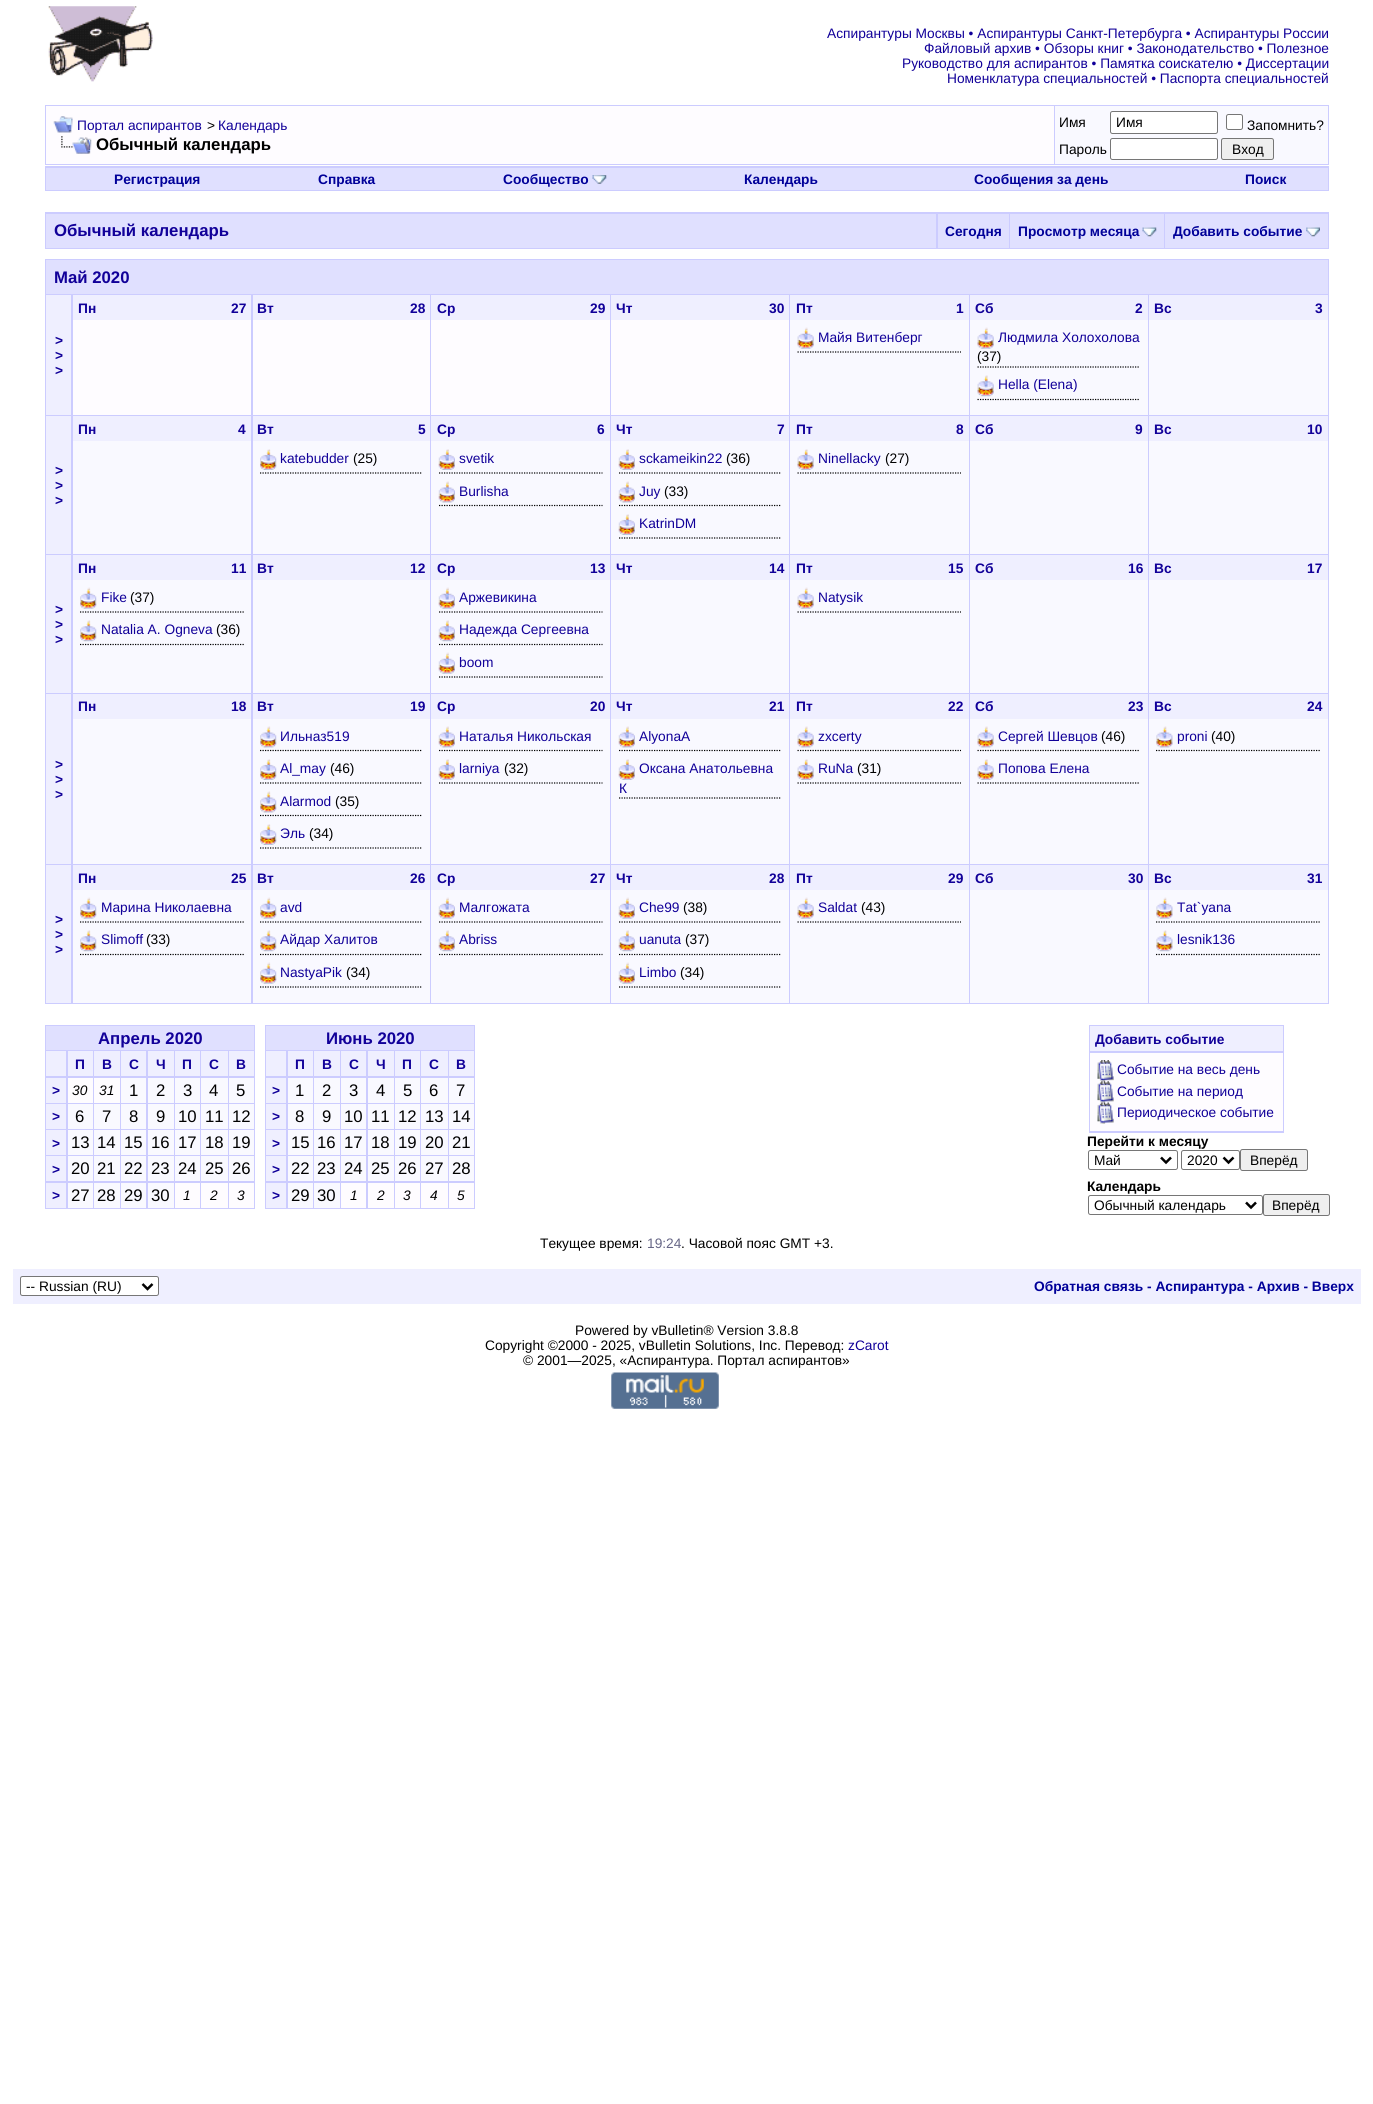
import math
import cairo


def use_color(cr, r, g, b):
  cr.set_source_rgb(r / 255, g / 255, b / 255)

def text(cr, x, y, s, family, size, color, bold=False, italic=False):
  cr.select_font_face(family, cairo.FONT_SLANT_ITALIC if italic else cairo.FONT_SLANT_NORMAL, cairo.FONT_WEIGHT_BOLD if bold else cairo.FONT_WEIGHT_NORMAL)
  cr.set_font_size(size)
  use_color(cr, *color)
  cr.move_to(x, y)
  cr.show_text(s)

def box(cr, x, y, w, h, *color):
  use_color(cr, *color)
  cr.rectangle(x, y, w, h)
  cr.fill()

def round_rect(cr, x, y, w, h, r):
  cr.new_sub_path()
  for i, (u, v) in enumerate([(x + w - r, y + h - r), (x + r, y + h - r), (x + r, y + r), (x + w - r, y + r)]):
    cr.arc(u, v, r, i * math.pi / 2, (i + 1) * math.pi / 2)
  cr.close_path()

def picture(cr, path, x, y, w, h):
  cr.save()
  cr.set_source_surface(cairo.ImageSurface.create_from_png(path), x, y)
  cr.rectangle(x, y, w, h)
  cr.fill()
  cr.restore()

def draw(cr):
  use_color(cr, 255, 255, 255)
  cr.paint()
  picture(cr, "img_01.png", 48, 6, 105, 76)
  box(cr, 45, 105, 1284, 60, 204, 204, 255)
  box(cr, 46, 106, 1008, 58, 254, 252, 255)
  picture(cr, "img_02.png", 53, 116, 20, 17)
  picture(cr, "img_03.png", 61, 136, 31, 18)
  box(cr, 1055, 106, 273, 58, 249, 249, 255)
  use_color(cr, 255, 255, 255)
  round_rect(cr, 1110.5, 111.5, 107, 22, 2)
  cr.fill_preserve()
  use_color(cr, 118, 118, 118)
  cr.set_line_width(1)
  cr.stroke()
  use_color(cr, 255, 255, 255)
  round_rect(cr, 1226.5, 114.5, 16, 15, 2)
  cr.fill_preserve()
  use_color(cr, 118, 118, 118)
  cr.stroke()
  use_color(cr, 255, 255, 255)
  round_rect(cr, 1110.5, 138.5, 107, 21, 2)
  cr.fill_preserve()
  use_color(cr, 118, 118, 118)
  cr.stroke()
  use_color(cr, 239, 239, 239)
  round_rect(cr, 1221.5, 138.5, 52, 21, 2)
  cr.fill_preserve()
  use_color(cr, 118, 118, 118)
  cr.stroke()
  box(cr, 45, 166, 1284, 25, 204, 204, 255)
  box(cr, 46, 168, 1282, 22, 224, 224, 255)
  picture(cr, "img_04.png", 592, 175, 15, 9)
  box(cr, 45, 212, 1284, 37, 204, 204, 255)
  box(cr, 46, 214, 890, 34, 224, 224, 255)
  box(cr, 938, 214, 71, 34, 224, 224, 255)
  box(cr, 1010, 214, 154, 34, 224, 224, 255)
  picture(cr, "img_05.png", 1142, 227, 15, 10)
  box(cr, 1165, 214, 163, 34, 224, 224, 255)
  picture(cr, "img_06.png", 1306, 227, 14, 10)
  box(cr, 45, 259, 1284, 745, 204, 204, 255)
  box(cr, 46, 260, 1282, 34, 224, 224, 255)
  box(cr, 73, 320, 178, 95, 254, 252, 255)
  box(cr, 73, 295, 178, 25, 239, 239, 255)
  box(cr, 253, 320, 177, 95, 254, 252, 255)
  box(cr, 253, 295, 177, 25, 239, 239, 255)
  box(cr, 431, 320, 179, 95, 254, 252, 255)
  box(cr, 431, 295, 179, 25, 239, 239, 255)
  box(cr, 611, 320, 178, 95, 254, 252, 255)
  box(cr, 611, 295, 178, 25, 239, 239, 255)
  box(cr, 790, 320, 179, 95, 249, 249, 255)
  box(cr, 790, 295, 179, 25, 239, 239, 255)
  cr.new_path()
  cr.move_to(797.5, 352)
  cr.line_to(961, 352)
  use_color(cr, 0, 0, 0)
  cr.set_line_width(1.2)
  cr.set_dash([1.25, 1.25])
  cr.stroke()
  picture(cr, "img_07.png", 797, 327, 17, 22)
  box(cr, 970, 320, 178, 95, 249, 249, 255)
  box(cr, 970, 295, 178, 25, 239, 239, 255)
  cr.new_path()
  cr.move_to(977.5, 367)
  cr.line_to(1140, 367)
  use_color(cr, 0, 0, 0)
  cr.stroke()
  picture(cr, "img_08.png", 977, 327, 17, 22)
  cr.new_path()
  cr.move_to(977.5, 399.5)
  cr.line_to(1140, 399.5)
  cr.stroke()
  picture(cr, "img_09.png", 977, 375, 17, 22)
  box(cr, 1149, 320, 179, 95, 249, 249, 255)
  box(cr, 1149, 295, 179, 25, 239, 239, 255)
  box(cr, 46, 295, 25, 120, 239, 239, 255)
  box(cr, 73, 441, 178, 113, 249, 249, 255)
  box(cr, 73, 416, 178, 25, 239, 239, 255)
  box(cr, 253, 441, 177, 113, 249, 249, 255)
  box(cr, 253, 416, 177, 25, 239, 239, 255)
  cr.new_path()
  cr.move_to(260, 473)
  cr.line_to(422.5, 473)
  use_color(cr, 0, 0, 0)
  cr.stroke()
  picture(cr, "img_10.png", 260, 449, 17, 21)
  box(cr, 431, 441, 179, 113, 249, 249, 255)
  box(cr, 431, 416, 179, 25, 239, 239, 255)
  cr.new_path()
  cr.move_to(439, 473)
  cr.line_to(602.5, 473)
  use_color(cr, 0, 0, 0)
  cr.stroke()
  picture(cr, "img_11.png", 438, 449, 17, 21)
  cr.new_path()
  cr.move_to(439, 505.5)
  cr.line_to(602.5, 505.5)
  cr.stroke()
  picture(cr, "img_12.png", 438, 481, 17, 22)
  box(cr, 611, 441, 178, 113, 249, 249, 255)
  box(cr, 611, 416, 178, 25, 239, 239, 255)
  cr.new_path()
  cr.move_to(619, 473)
  cr.line_to(781, 473)
  use_color(cr, 0, 0, 0)
  cr.stroke()
  picture(cr, "img_11.png", 618, 449, 17, 21)
  cr.new_path()
  cr.move_to(619, 505.5)
  cr.line_to(781, 505.5)
  cr.stroke()
  picture(cr, "img_12.png", 618, 481, 17, 22)
  cr.new_path()
  cr.move_to(619, 538)
  cr.line_to(781, 538)
  cr.stroke()
  picture(cr, "img_11.png", 618, 514, 17, 21)
  box(cr, 790, 441, 179, 113, 249, 249, 255)
  box(cr, 790, 416, 179, 25, 239, 239, 255)
  cr.new_path()
  cr.move_to(797.5, 473)
  cr.line_to(961, 473)
  use_color(cr, 0, 0, 0)
  cr.stroke()
  picture(cr, "img_13.png", 797, 449, 17, 21)
  box(cr, 970, 441, 178, 113, 249, 249, 255)
  box(cr, 970, 416, 178, 25, 239, 239, 255)
  box(cr, 1149, 441, 179, 113, 249, 249, 255)
  box(cr, 1149, 416, 179, 25, 239, 239, 255)
  box(cr, 46, 416, 25, 138, 239, 239, 255)
  box(cr, 73, 580, 178, 113, 249, 249, 255)
  box(cr, 73, 555, 178, 25, 239, 239, 255)
  cr.new_path()
  cr.move_to(80, 612)
  cr.line_to(244, 612)
  use_color(cr, 0, 0, 0)
  cr.stroke()
  picture(cr, "img_14.png", 80, 587, 17, 22)
  cr.new_path()
  cr.move_to(80, 644.5)
  cr.line_to(244, 644.5)
  cr.stroke()
  picture(cr, "img_15.png", 80, 620, 17, 22)
  box(cr, 253, 580, 177, 113, 249, 249, 255)
  box(cr, 253, 555, 177, 25, 239, 239, 255)
  box(cr, 431, 580, 179, 113, 249, 249, 255)
  box(cr, 431, 555, 179, 25, 239, 239, 255)
  cr.new_path()
  cr.move_to(439, 612)
  cr.line_to(602.5, 612)
  use_color(cr, 0, 0, 0)
  cr.stroke()
  picture(cr, "img_16.png", 438, 587, 17, 22)
  cr.new_path()
  cr.move_to(439, 644.5)
  cr.line_to(602.5, 644.5)
  cr.stroke()
  picture(cr, "img_17.png", 438, 620, 17, 22)
  cr.new_path()
  cr.move_to(439, 677)
  cr.line_to(602.5, 677)
  cr.stroke()
  picture(cr, "img_18.png", 438, 652, 17, 22)
  box(cr, 611, 580, 178, 113, 249, 249, 255)
  box(cr, 611, 555, 178, 25, 239, 239, 255)
  box(cr, 790, 580, 179, 113, 249, 249, 255)
  box(cr, 790, 555, 179, 25, 239, 239, 255)
  cr.new_path()
  cr.move_to(797.5, 612)
  cr.line_to(961, 612)
  use_color(cr, 0, 0, 0)
  cr.stroke()
  picture(cr, "img_19.png", 797, 587, 17, 22)
  box(cr, 970, 580, 178, 113, 249, 249, 255)
  box(cr, 970, 555, 178, 25, 239, 239, 255)
  box(cr, 1149, 580, 179, 113, 249, 249, 255)
  box(cr, 1149, 555, 179, 25, 239, 239, 255)
  box(cr, 46, 555, 25, 138, 239, 239, 255)
  box(cr, 73, 719, 178, 145, 249, 249, 255)
  box(cr, 73, 694, 178, 25, 239, 239, 255)
  box(cr, 253, 719, 177, 145, 249, 249, 255)
  box(cr, 253, 694, 177, 25, 239, 239, 255)
  cr.new_path()
  cr.move_to(260, 750.5)
  cr.line_to(422.5, 750.5)
  use_color(cr, 0, 0, 0)
  cr.stroke()
  picture(cr, "img_20.png", 260, 726, 17, 22)
  cr.new_path()
  cr.move_to(260, 783)
  cr.line_to(422.5, 783)
  cr.stroke()
  picture(cr, "img_10.png", 260, 759, 17, 21)
  cr.new_path()
  cr.move_to(260, 815.5)
  cr.line_to(422.5, 815.5)
  cr.stroke()
  picture(cr, "img_20.png", 260, 791, 17, 22)
  cr.new_path()
  cr.move_to(260, 848)
  cr.line_to(422.5, 848)
  cr.stroke()
  picture(cr, "img_10.png", 260, 824, 17, 21)
  box(cr, 431, 719, 179, 145, 249, 249, 255)
  box(cr, 431, 694, 179, 25, 239, 239, 255)
  cr.new_path()
  cr.move_to(439, 750.5)
  cr.line_to(602.5, 750.5)
  use_color(cr, 0, 0, 0)
  cr.stroke()
  picture(cr, "img_12.png", 438, 726, 17, 22)
  cr.new_path()
  cr.move_to(439, 783)
  cr.line_to(602.5, 783)
  cr.stroke()
  picture(cr, "img_11.png", 438, 759, 17, 21)
  box(cr, 611, 719, 178, 145, 249, 249, 255)
  box(cr, 611, 694, 178, 25, 239, 239, 255)
  cr.new_path()
  cr.move_to(619, 750.5)
  cr.line_to(781, 750.5)
  use_color(cr, 0, 0, 0)
  cr.stroke()
  picture(cr, "img_12.png", 618, 726, 17, 22)
  cr.new_path()
  cr.move_to(619, 798)
  cr.line_to(781, 798)
  cr.stroke()
  picture(cr, "img_11.png", 618, 759, 17, 21)
  box(cr, 790, 719, 179, 145, 249, 249, 255)
  box(cr, 790, 694, 179, 25, 239, 239, 255)
  cr.new_path()
  cr.move_to(797.5, 750.5)
  cr.line_to(961, 750.5)
  use_color(cr, 0, 0, 0)
  cr.stroke()
  picture(cr, "img_21.png", 797, 726, 17, 22)
  cr.new_path()
  cr.move_to(797.5, 783)
  cr.line_to(961, 783)
  cr.stroke()
  picture(cr, "img_13.png", 797, 759, 17, 21)
  box(cr, 970, 719, 178, 145, 249, 249, 255)
  box(cr, 970, 694, 178, 25, 239, 239, 255)
  cr.new_path()
  cr.move_to(977.5, 750.5)
  cr.line_to(1140, 750.5)
  use_color(cr, 0, 0, 0)
  cr.stroke()
  picture(cr, "img_22.png", 977, 726, 17, 22)
  cr.new_path()
  cr.move_to(977.5, 783)
  cr.line_to(1140, 783)
  cr.stroke()
  picture(cr, "img_23.png", 977, 759, 17, 21)
  box(cr, 1149, 719, 179, 145, 249, 249, 255)
  box(cr, 1149, 694, 179, 25, 239, 239, 255)
  cr.new_path()
  cr.move_to(1156, 750.5)
  cr.line_to(1320, 750.5)
  use_color(cr, 0, 0, 0)
  cr.stroke()
  picture(cr, "img_24.png", 1156, 726, 17, 22)
  box(cr, 46, 694, 25, 170, 239, 239, 255)
  box(cr, 46, 865, 25, 138, 239, 239, 255)
  box(cr, 73, 890, 178, 113, 249, 249, 255)
  box(cr, 73, 865, 178, 25, 239, 239, 255)
  cr.new_path()
  cr.move_to(80, 922)
  cr.line_to(244, 922)
  use_color(cr, 0, 0, 0)
  cr.stroke()
  picture(cr, "img_25.png", 80, 897, 17, 22)
  cr.new_path()
  cr.move_to(80, 954.5)
  cr.line_to(244, 954.5)
  cr.stroke()
  picture(cr, "img_15.png", 80, 930, 17, 22)
  box(cr, 253, 890, 177, 113, 249, 249, 255)
  box(cr, 253, 865, 177, 25, 239, 239, 255)
  cr.new_path()
  cr.move_to(260, 922)
  cr.line_to(422.5, 922)
  use_color(cr, 0, 0, 0)
  cr.stroke()
  picture(cr, "img_25.png", 260, 897, 17, 22)
  cr.new_path()
  cr.move_to(260, 954.5)
  cr.line_to(422.5, 954.5)
  cr.stroke()
  picture(cr, "img_15.png", 260, 930, 17, 22)
  cr.new_path()
  cr.move_to(260, 987)
  cr.line_to(422.5, 987)
  cr.stroke()
  picture(cr, "img_25.png", 260, 962, 17, 22)
  box(cr, 431, 890, 179, 113, 249, 249, 255)
  box(cr, 431, 865, 179, 25, 239, 239, 255)
  cr.new_path()
  cr.move_to(439, 922)
  cr.line_to(602.5, 922)
  use_color(cr, 0, 0, 0)
  cr.stroke()
  picture(cr, "img_18.png", 438, 897, 17, 22)
  cr.new_path()
  cr.move_to(439, 954.5)
  cr.line_to(602.5, 954.5)
  cr.stroke()
  picture(cr, "img_17.png", 438, 930, 17, 22)
  box(cr, 611, 890, 178, 113, 249, 249, 255)
  box(cr, 611, 865, 178, 25, 239, 239, 255)
  cr.new_path()
  cr.move_to(619, 922)
  cr.line_to(781, 922)
  use_color(cr, 0, 0, 0)
  cr.stroke()
  picture(cr, "img_18.png", 618, 897, 17, 22)
  cr.new_path()
  cr.move_to(619, 954.5)
  cr.line_to(781, 954.5)
  cr.stroke()
  picture(cr, "img_17.png", 618, 930, 17, 22)
  cr.new_path()
  cr.move_to(619, 987)
  cr.line_to(781, 987)
  cr.stroke()
  picture(cr, "img_18.png", 618, 962, 17, 22)
  box(cr, 790, 890, 179, 113, 249, 249, 255)
  box(cr, 790, 865, 179, 25, 239, 239, 255)
  cr.new_path()
  cr.move_to(797.5, 922)
  cr.line_to(961, 922)
  use_color(cr, 0, 0, 0)
  cr.stroke()
  picture(cr, "img_07.png", 797, 897, 17, 22)
  box(cr, 970, 890, 178, 113, 249, 249, 255)
  box(cr, 970, 865, 178, 25, 239, 239, 255)
  box(cr, 1149, 890, 179, 113, 249, 249, 255)
  box(cr, 1149, 865, 179, 25, 239, 239, 255)
  cr.new_path()
  cr.move_to(1156, 922)
  cr.line_to(1320, 922)
  use_color(cr, 0, 0, 0)
  cr.stroke()
  picture(cr, "img_26.png", 1156, 897, 17, 22)
  cr.new_path()
  cr.move_to(1156, 954.5)
  cr.line_to(1320, 954.5)
  cr.stroke()
  picture(cr, "img_27.png", 1156, 930, 17, 22)
  box(cr, 45, 1025, 210, 184, 204, 204, 255)
  box(cr, 46, 1026, 208, 24, 224, 224, 255)
  box(cr, 46, 1051, 20, 25, 239, 239, 255)
  box(cr, 68, 1051, 25, 25, 239, 239, 255)
  box(cr, 94, 1051, 26, 25, 239, 239, 255)
  box(cr, 121, 1051, 25, 25, 239, 239, 255)
  box(cr, 148, 1051, 26, 25, 239, 239, 255)
  box(cr, 175, 1051, 25, 25, 239, 239, 255)
  box(cr, 201, 1051, 27, 25, 239, 239, 255)
  box(cr, 229, 1051, 25, 25, 239, 239, 255)
  box(cr, 46, 1078, 20, 25, 239, 239, 255)
  box(cr, 68, 1078, 25, 25, 254, 252, 255)
  box(cr, 94, 1078, 26, 25, 254, 252, 255)
  box(cr, 121, 1078, 25, 25, 249, 249, 255)
  box(cr, 148, 1078, 26, 25, 249, 249, 255)
  box(cr, 175, 1078, 25, 25, 249, 249, 255)
  box(cr, 201, 1078, 27, 25, 249, 249, 255)
  box(cr, 229, 1078, 25, 25, 249, 249, 255)
  box(cr, 46, 1104, 20, 25, 239, 239, 255)
  box(cr, 68, 1104, 25, 25, 249, 249, 255)
  box(cr, 94, 1104, 26, 25, 249, 249, 255)
  box(cr, 121, 1104, 25, 25, 249, 249, 255)
  box(cr, 148, 1104, 26, 25, 249, 249, 255)
  box(cr, 175, 1104, 25, 25, 249, 249, 255)
  box(cr, 201, 1104, 27, 25, 249, 249, 255)
  box(cr, 229, 1104, 25, 25, 249, 249, 255)
  box(cr, 46, 1130, 20, 25, 239, 239, 255)
  box(cr, 68, 1130, 25, 25, 249, 249, 255)
  box(cr, 94, 1130, 26, 25, 249, 249, 255)
  box(cr, 121, 1130, 25, 25, 249, 249, 255)
  box(cr, 148, 1130, 26, 25, 249, 249, 255)
  box(cr, 175, 1130, 25, 25, 249, 249, 255)
  box(cr, 201, 1130, 27, 25, 249, 249, 255)
  box(cr, 229, 1130, 25, 25, 249, 249, 255)
  box(cr, 46, 1156, 20, 25, 239, 239, 255)
  box(cr, 68, 1156, 25, 25, 249, 249, 255)
  box(cr, 94, 1156, 26, 25, 249, 249, 255)
  box(cr, 121, 1156, 25, 25, 249, 249, 255)
  box(cr, 148, 1156, 26, 25, 249, 249, 255)
  box(cr, 175, 1156, 25, 25, 249, 249, 255)
  box(cr, 201, 1156, 27, 25, 249, 249, 255)
  box(cr, 229, 1156, 25, 25, 249, 249, 255)
  box(cr, 46, 1183, 20, 25, 239, 239, 255)
  box(cr, 68, 1183, 25, 25, 249, 249, 255)
  box(cr, 94, 1183, 26, 25, 249, 249, 255)
  box(cr, 121, 1183, 25, 25, 249, 249, 255)
  box(cr, 148, 1183, 26, 25, 249, 249, 255)
  box(cr, 175, 1183, 25, 25, 254, 252, 255)
  box(cr, 201, 1183, 27, 25, 254, 252, 255)
  box(cr, 229, 1183, 25, 25, 254, 252, 255)
  box(cr, 265, 1025, 210, 184, 204, 204, 255)
  box(cr, 266, 1026, 208, 24, 224, 224, 255)
  box(cr, 266, 1051, 20, 25, 239, 239, 255)
  box(cr, 288, 1051, 25, 25, 239, 239, 255)
  box(cr, 314, 1051, 26, 25, 239, 239, 255)
  box(cr, 341, 1051, 25, 25, 239, 239, 255)
  box(cr, 368, 1051, 26, 25, 239, 239, 255)
  box(cr, 395, 1051, 25, 25, 239, 239, 255)
  box(cr, 421, 1051, 27, 25, 239, 239, 255)
  box(cr, 449, 1051, 25, 25, 239, 239, 255)
  box(cr, 266, 1078, 20, 25, 239, 239, 255)
  box(cr, 288, 1078, 25, 25, 249, 249, 255)
  box(cr, 314, 1078, 26, 25, 249, 249, 255)
  box(cr, 341, 1078, 25, 25, 249, 249, 255)
  box(cr, 368, 1078, 26, 25, 249, 249, 255)
  box(cr, 395, 1078, 25, 25, 249, 249, 255)
  box(cr, 421, 1078, 27, 25, 249, 249, 255)
  box(cr, 449, 1078, 25, 25, 249, 249, 255)
  box(cr, 266, 1104, 20, 25, 239, 239, 255)
  box(cr, 288, 1104, 25, 25, 249, 249, 255)
  box(cr, 314, 1104, 26, 25, 249, 249, 255)
  box(cr, 341, 1104, 25, 25, 249, 249, 255)
  box(cr, 368, 1104, 26, 25, 249, 249, 255)
  box(cr, 395, 1104, 25, 25, 249, 249, 255)
  box(cr, 421, 1104, 27, 25, 249, 249, 255)
  box(cr, 449, 1104, 25, 25, 249, 249, 255)
  box(cr, 266, 1130, 20, 25, 239, 239, 255)
  box(cr, 288, 1130, 25, 25, 249, 249, 255)
  box(cr, 314, 1130, 26, 25, 249, 249, 255)
  box(cr, 341, 1130, 25, 25, 249, 249, 255)
  box(cr, 368, 1130, 26, 25, 249, 249, 255)
  box(cr, 395, 1130, 25, 25, 249, 249, 255)
  box(cr, 421, 1130, 27, 25, 249, 249, 255)
  box(cr, 449, 1130, 25, 25, 249, 249, 255)
  box(cr, 266, 1156, 20, 25, 239, 239, 255)
  box(cr, 288, 1156, 25, 25, 249, 249, 255)
  box(cr, 314, 1156, 26, 25, 249, 249, 255)
  box(cr, 341, 1156, 25, 25, 249, 249, 255)
  box(cr, 368, 1156, 26, 25, 249, 249, 255)
  box(cr, 395, 1156, 25, 25, 249, 249, 255)
  box(cr, 421, 1156, 27, 25, 249, 249, 255)
  box(cr, 449, 1156, 25, 25, 249, 249, 255)
  box(cr, 266, 1183, 20, 25, 239, 239, 255)
  box(cr, 288, 1183, 25, 25, 249, 249, 255)
  box(cr, 314, 1183, 26, 25, 249, 249, 255)
  box(cr, 341, 1183, 25, 25, 254, 252, 255)
  box(cr, 368, 1183, 26, 25, 254, 252, 255)
  box(cr, 395, 1183, 25, 25, 254, 252, 255)
  box(cr, 421, 1183, 27, 25, 254, 252, 255)
  box(cr, 449, 1183, 25, 25, 254, 252, 255)
  box(cr, 1089, 1025, 195, 108, 204, 204, 255)
  box(cr, 1090, 1026, 193, 25, 239, 239, 255)
  box(cr, 1090, 1053, 193, 78, 254, 252, 255)
  picture(cr, "img_28.png", 1097, 1060, 17, 22)
  picture(cr, "img_29.png", 1097, 1081, 17, 22)
  picture(cr, "img_30.png", 1097, 1102, 17, 22)
  round_rect(cr, 1088.5, 1150.5, 89, 19, 2)
  use_color(cr, 118, 118, 118)
  cr.set_line_width(1)
  cr.set_dash([])
  cr.stroke()
  cr.new_path()
  cr.move_to(1161, 1157.5)
  cr.line_to(1166, 1162.5)
  cr.line_to(1171, 1157.5)
  use_color(cr, 0, 0, 0)
  cr.set_line_width(2.5)
  cr.stroke()
  round_rect(cr, 1181.5, 1150.5, 58, 19, 2)
  use_color(cr, 118, 118, 118)
  cr.set_line_width(1)
  cr.stroke()
  cr.new_path()
  cr.move_to(1223.5, 1157.5)
  cr.line_to(1228.5, 1162.5)
  cr.line_to(1233.5, 1157.5)
  use_color(cr, 0, 0, 0)
  cr.set_line_width(2.5)
  cr.stroke()
  use_color(cr, 239, 239, 239)
  round_rect(cr, 1240.5, 1149.5, 67, 21, 2)
  cr.fill_preserve()
  use_color(cr, 118, 118, 118)
  cr.set_line_width(1)
  cr.stroke()
  round_rect(cr, 1088.5, 1195.5, 174, 19, 2)
  cr.stroke()
  cr.new_path()
  cr.move_to(1246, 1202.5)
  cr.line_to(1251, 1207.5)
  cr.line_to(1256, 1202.5)
  use_color(cr, 0, 0, 0)
  cr.set_line_width(2.5)
  cr.stroke()
  use_color(cr, 239, 239, 239)
  round_rect(cr, 1263.5, 1194.5, 66, 21, 2)
  cr.fill_preserve()
  use_color(cr, 118, 118, 118)
  cr.set_line_width(1)
  cr.stroke()
  box(cr, 13, 1269, 1348, 35, 239, 239, 255)
  use_color(cr, 255, 255, 255)
  round_rect(cr, 20.5, 1276.5, 138, 19, 2)
  cr.fill_preserve()
  use_color(cr, 118, 118, 118)
  cr.stroke()
  cr.new_path()
  cr.move_to(142.5, 1284)
  cr.line_to(147.5, 1289)
  cr.line_to(152.5, 1284)
  use_color(cr, 0, 0, 0)
  cr.set_line_width(2.5)
  cr.stroke()
  picture(cr, "img_31.png", 611, 1372, 108, 37)
  text(cr, 827, 38, "Аспирантуры Москвы • Аспирантуры Санкт-Петербурга • Аспирантуры России", "Liberation Sans", 13.75, (17, 0, 153))
  text(cr, 924, 53, "Файловый архив • Обзоры книг • Законодательство • Полезное", "Liberation Sans", 13.75, (17, 0, 153))
  text(cr, 902, 68, "Руководство для аспирантов • Памятка соискателю • Диссертации", "Liberation Sans", 13.75, (17, 0, 153))
  text(cr, 947, 83, "Номенклатура специальностей • Паспорта специальностей", "Liberation Sans", 13.75, (17, 0, 153))
  text(cr, 77, 130, "Портал аспирантов", "Liberation Sans", 13.75, (17, 0, 153))
  text(cr, 207, 130, ">", "Liberation Sans", 13.75, (0, 0, 0))
  text(cr, 218, 130, "Календарь", "Liberation Sans", 13.75, (17, 0, 153))
  text(cr, 96, 150, "Обычный календарь", "Liberation Sans", 16.75, (0, 0, 0), bold=True)
  text(cr, 1059, 127, "Имя", "Liberation Sans", 13.75, (0, 0, 0))
  text(cr, 1116, 127, "Имя", "Liberation Sans", 13.75, (0, 0, 0))
  text(cr, 1247, 130, "Запомнить?", "Liberation Sans", 13.75, (0, 0, 0))
  text(cr, 1059, 154, "Пароль", "Liberation Sans", 13.75, (0, 0, 0))
  text(cr, 1232, 154, "Вход", "Liberation Sans", 13.75, (0, 0, 0))
  text(cr, 114, 184, "Регистрация", "Liberation Sans", 13.75, (0, 0, 153), bold=True)
  text(cr, 318, 184, "Справка", "Liberation Sans", 13.75, (0, 0, 153), bold=True)
  text(cr, 503, 184, "Сообщество", "Liberation Sans", 13.75, (0, 0, 153), bold=True)
  text(cr, 744, 184, "Календарь", "Liberation Sans", 13.75, (0, 0, 153), bold=True)
  text(cr, 974, 184, "Сообщения за день", "Liberation Sans", 13.75, (0, 0, 153), bold=True)
  text(cr, 1245, 184, "Поиск", "Liberation Sans", 13.75, (0, 0, 153), bold=True)
  text(cr, 54, 236, "Обычный календарь", "Liberation Sans", 16.75, (17, 0, 153), bold=True)
  text(cr, 945, 236, "Сегодня", "Liberation Sans", 13.75, (0, 0, 153), bold=True)
  text(cr, 1018, 236, "Просмотр месяца", "Liberation Sans", 13.75, (0, 0, 153), bold=True)
  text(cr, 1173, 236, "Добавить событие", "Liberation Sans", 13.75, (0, 0, 153), bold=True)
  text(cr, 54, 283, "Май 2020", "Liberation Sans", 16.75, (17, 0, 153), bold=True)
  text(cr, 78, 313, "Пн", "Liberation Sans", 13.75, (17, 0, 153), bold=True)
  text(cr, 231, 313, "27", "Liberation Sans", 13.75, (17, 0, 153), bold=True)
  text(cr, 257, 313, "Вт", "Liberation Sans", 13.75, (17, 0, 153), bold=True)
  text(cr, 410, 313, "28", "Liberation Sans", 13.75, (17, 0, 153), bold=True)
  text(cr, 437, 313, "Ср", "Liberation Sans", 13.75, (17, 0, 153), bold=True)
  text(cr, 590, 313, "29", "Liberation Sans", 13.75, (17, 0, 153), bold=True)
  text(cr, 616, 313, "Чт", "Liberation Sans", 13.75, (17, 0, 153), bold=True)
  text(cr, 769, 313, "30", "Liberation Sans", 13.75, (17, 0, 153), bold=True)
  text(cr, 796, 313, "Пт", "Liberation Sans", 13.75, (17, 0, 153), bold=True)
  text(cr, 956, 313, "1", "Liberation Sans", 13.75, (17, 0, 153), bold=True)
  text(cr, 818, 342, "Майя Витенберг", "Liberation Sans", 13.75, (17, 0, 153))
  text(cr, 975, 313, "Сб", "Liberation Sans", 13.75, (17, 0, 153), bold=True)
  text(cr, 1135, 313, "2", "Liberation Sans", 13.75, (17, 0, 153), bold=True)
  text(cr, 998, 342, "Людмила Холохолова", "Liberation Sans", 13.75, (17, 0, 153))
  text(cr, 977, 361, "(37)", "Liberation Sans", 13.75, (0, 0, 0))
  text(cr, 998, 389, "Hella (Elena)", "Liberation Sans", 13.75, (17, 0, 153))
  text(cr, 1154, 313, "Вс", "Liberation Sans", 13.75, (17, 0, 153), bold=True)
  text(cr, 1315, 313, "3", "Liberation Sans", 13.75, (17, 0, 153), bold=True)
  text(cr, 55, 345, ">", "Liberation Sans", 13.75, (17, 0, 153), bold=True)
  text(cr, 55, 360, ">", "Liberation Sans", 13.75, (17, 0, 153), bold=True)
  text(cr, 55, 375, ">", "Liberation Sans", 13.75, (17, 0, 153), bold=True)
  text(cr, 78, 434, "Пн", "Liberation Sans", 13.75, (17, 0, 153), bold=True)
  text(cr, 238, 434, "4", "Liberation Sans", 13.75, (17, 0, 153), bold=True)
  text(cr, 257, 434, "Вт", "Liberation Sans", 13.75, (17, 0, 153), bold=True)
  text(cr, 418, 434, "5", "Liberation Sans", 13.75, (17, 0, 153), bold=True)
  text(cr, 280, 463, "katebudder", "Liberation Sans", 13.75, (17, 0, 153))
  text(cr, 353, 463, "(25)", "Liberation Sans", 13.75, (0, 0, 0))
  text(cr, 437, 434, "Ср", "Liberation Sans", 13.75, (17, 0, 153), bold=True)
  text(cr, 597, 434, "6", "Liberation Sans", 13.75, (17, 0, 153), bold=True)
  text(cr, 459, 463, "svetik", "Liberation Sans", 13.75, (17, 0, 153))
  text(cr, 459, 496, "Burlisha", "Liberation Sans", 13.75, (17, 0, 153))
  text(cr, 616, 434, "Чт", "Liberation Sans", 13.75, (17, 0, 153), bold=True)
  text(cr, 777, 434, "7", "Liberation Sans", 13.75, (17, 0, 153), bold=True)
  text(cr, 639, 463, "sckameikin22", "Liberation Sans", 13.75, (17, 0, 153))
  text(cr, 726, 463, "(36)", "Liberation Sans", 13.75, (0, 0, 0))
  text(cr, 639, 496, "Juy", "Liberation Sans", 13.75, (17, 0, 153))
  text(cr, 664, 496, "(33)", "Liberation Sans", 13.75, (0, 0, 0))
  text(cr, 639, 528, "KatrinDM", "Liberation Sans", 13.75, (17, 0, 153))
  text(cr, 796, 434, "Пт", "Liberation Sans", 13.75, (17, 0, 153), bold=True)
  text(cr, 956, 434, "8", "Liberation Sans", 13.75, (17, 0, 153), bold=True)
  text(cr, 818, 463, "Ninellacky", "Liberation Sans", 13.75, (17, 0, 153))
  text(cr, 885, 463, "(27)", "Liberation Sans", 13.75, (0, 0, 0))
  text(cr, 975, 434, "Сб", "Liberation Sans", 13.75, (17, 0, 153), bold=True)
  text(cr, 1135, 434, "9", "Liberation Sans", 13.75, (17, 0, 153), bold=True)
  text(cr, 1154, 434, "Вс", "Liberation Sans", 13.75, (17, 0, 153), bold=True)
  text(cr, 1307, 434, "10", "Liberation Sans", 13.75, (17, 0, 153), bold=True)
  text(cr, 55, 475, ">", "Liberation Sans", 13.75, (17, 0, 153), bold=True)
  text(cr, 55, 490, ">", "Liberation Sans", 13.75, (17, 0, 153), bold=True)
  text(cr, 55, 505, ">", "Liberation Sans", 13.75, (17, 0, 153), bold=True)
  text(cr, 78, 573, "Пн", "Liberation Sans", 13.75, (17, 0, 153), bold=True)
  text(cr, 231, 573, "11", "Liberation Sans", 13.75, (17, 0, 153), bold=True)
  text(cr, 101, 602, "Fike", "Liberation Sans", 13.75, (17, 0, 153))
  text(cr, 130, 602, "(37)", "Liberation Sans", 13.75, (0, 0, 0))
  text(cr, 101, 634, "Natalia A. Ogneva", "Liberation Sans", 13.75, (17, 0, 153))
  text(cr, 216, 634, "(36)", "Liberation Sans", 13.75, (0, 0, 0))
  text(cr, 257, 573, "Вт", "Liberation Sans", 13.75, (17, 0, 153), bold=True)
  text(cr, 410, 573, "12", "Liberation Sans", 13.75, (17, 0, 153), bold=True)
  text(cr, 437, 573, "Ср", "Liberation Sans", 13.75, (17, 0, 153), bold=True)
  text(cr, 590, 573, "13", "Liberation Sans", 13.75, (17, 0, 153), bold=True)
  text(cr, 459, 602, "Аржевикина", "Liberation Sans", 13.75, (17, 0, 153))
  text(cr, 459, 634, "Надежда Сергеевна", "Liberation Sans", 13.75, (17, 0, 153))
  text(cr, 459, 667, "boom", "Liberation Sans", 13.75, (17, 0, 153))
  text(cr, 616, 573, "Чт", "Liberation Sans", 13.75, (17, 0, 153), bold=True)
  text(cr, 769, 573, "14", "Liberation Sans", 13.75, (17, 0, 153), bold=True)
  text(cr, 796, 573, "Пт", "Liberation Sans", 13.75, (17, 0, 153), bold=True)
  text(cr, 948, 573, "15", "Liberation Sans", 13.75, (17, 0, 153), bold=True)
  text(cr, 818, 602, "Natysik", "Liberation Sans", 13.75, (17, 0, 153))
  text(cr, 975, 573, "Сб", "Liberation Sans", 13.75, (17, 0, 153), bold=True)
  text(cr, 1128, 573, "16", "Liberation Sans", 13.75, (17, 0, 153), bold=True)
  text(cr, 1154, 573, "Вс", "Liberation Sans", 13.75, (17, 0, 153), bold=True)
  text(cr, 1307, 573, "17", "Liberation Sans", 13.75, (17, 0, 153), bold=True)
  text(cr, 55, 614, ">", "Liberation Sans", 13.75, (17, 0, 153), bold=True)
  text(cr, 55, 629, ">", "Liberation Sans", 13.75, (17, 0, 153), bold=True)
  text(cr, 55, 644, ">", "Liberation Sans", 13.75, (17, 0, 153), bold=True)
  text(cr, 78, 711, "Пн", "Liberation Sans", 13.75, (17, 0, 153), bold=True)
  text(cr, 231, 711, "18", "Liberation Sans", 13.75, (17, 0, 153), bold=True)
  text(cr, 257, 711, "Вт", "Liberation Sans", 13.75, (17, 0, 153), bold=True)
  text(cr, 410, 711, "19", "Liberation Sans", 13.75, (17, 0, 153), bold=True)
  text(cr, 280, 741, "Ильназ519", "Liberation Sans", 13.75, (17, 0, 153))
  text(cr, 280, 773, "Al_may", "Liberation Sans", 13.75, (17, 0, 153))
  text(cr, 330, 773, "(46)", "Liberation Sans", 13.75, (0, 0, 0))
  text(cr, 280, 806, "Alarmod", "Liberation Sans", 13.75, (17, 0, 153))
  text(cr, 335, 806, "(35)", "Liberation Sans", 13.75, (0, 0, 0))
  text(cr, 280, 838, "Эль", "Liberation Sans", 13.75, (17, 0, 153))
  text(cr, 309, 838, "(34)", "Liberation Sans", 13.75, (0, 0, 0))
  text(cr, 437, 711, "Ср", "Liberation Sans", 13.75, (17, 0, 153), bold=True)
  text(cr, 590, 711, "20", "Liberation Sans", 13.75, (17, 0, 153), bold=True)
  text(cr, 459, 741, "Наталья Никольская", "Liberation Sans", 13.75, (17, 0, 153))
  text(cr, 459, 773, "larniya", "Liberation Sans", 13.75, (17, 0, 153))
  text(cr, 504, 773, "(32)", "Liberation Sans", 13.75, (0, 0, 0))
  text(cr, 616, 711, "Чт", "Liberation Sans", 13.75, (17, 0, 153), bold=True)
  text(cr, 769, 711, "21", "Liberation Sans", 13.75, (17, 0, 153), bold=True)
  text(cr, 639, 741, "AlyonaA", "Liberation Sans", 13.75, (17, 0, 153))
  text(cr, 639, 773, "Оксана Анатольевна", "Liberation Sans", 13.75, (17, 0, 153))
  text(cr, 619, 793, "К", "Liberation Sans", 13.75, (17, 0, 153))
  text(cr, 796, 711, "Пт", "Liberation Sans", 13.75, (17, 0, 153), bold=True)
  text(cr, 948, 711, "22", "Liberation Sans", 13.75, (17, 0, 153), bold=True)
  text(cr, 818, 741, "zxcerty", "Liberation Sans", 13.75, (17, 0, 153))
  text(cr, 818, 773, "RuNa", "Liberation Sans", 13.75, (17, 0, 153))
  text(cr, 857, 773, "(31)", "Liberation Sans", 13.75, (0, 0, 0))
  text(cr, 975, 711, "Сб", "Liberation Sans", 13.75, (17, 0, 153), bold=True)
  text(cr, 1128, 711, "23", "Liberation Sans", 13.75, (17, 0, 153), bold=True)
  text(cr, 998, 741, "Сергей Шевцов", "Liberation Sans", 13.75, (17, 0, 153))
  text(cr, 1101, 741, "(46)", "Liberation Sans", 13.75, (0, 0, 0))
  text(cr, 998, 773, "Попова Елена", "Liberation Sans", 13.75, (17, 0, 153))
  text(cr, 1154, 711, "Вс", "Liberation Sans", 13.75, (17, 0, 153), bold=True)
  text(cr, 1307, 711, "24", "Liberation Sans", 13.75, (17, 0, 153), bold=True)
  text(cr, 1177, 741, "proni", "Liberation Sans", 13.75, (17, 0, 153))
  text(cr, 1211, 741, "(40)", "Liberation Sans", 13.75, (0, 0, 0))
  text(cr, 55, 769, ">", "Liberation Sans", 13.75, (17, 0, 153), bold=True)
  text(cr, 55, 784, ">", "Liberation Sans", 13.75, (17, 0, 153), bold=True)
  text(cr, 55, 799, ">", "Liberation Sans", 13.75, (17, 0, 153), bold=True)
  text(cr, 55, 924, ">", "Liberation Sans", 13.75, (17, 0, 153), bold=True)
  text(cr, 55, 939, ">", "Liberation Sans", 13.75, (17, 0, 153), bold=True)
  text(cr, 55, 954, ">", "Liberation Sans", 13.75, (17, 0, 153), bold=True)
  text(cr, 78, 883, "Пн", "Liberation Sans", 13.75, (17, 0, 153), bold=True)
  text(cr, 231, 883, "25", "Liberation Sans", 13.75, (17, 0, 153), bold=True)
  text(cr, 101, 912, "Марина Николаевна", "Liberation Sans", 13.75, (17, 0, 153))
  text(cr, 101, 944, "Slimoff", "Liberation Sans", 13.75, (17, 0, 153))
  text(cr, 146, 944, "(33)", "Liberation Sans", 13.75, (0, 0, 0))
  text(cr, 257, 883, "Вт", "Liberation Sans", 13.75, (17, 0, 153), bold=True)
  text(cr, 410, 883, "26", "Liberation Sans", 13.75, (17, 0, 153), bold=True)
  text(cr, 280, 912, "avd", "Liberation Sans", 13.75, (17, 0, 153))
  text(cr, 280, 944, "Айдар Халитов", "Liberation Sans", 13.75, (17, 0, 153))
  text(cr, 280, 977, "NastyaPik", "Liberation Sans", 13.75, (17, 0, 153))
  text(cr, 346, 977, "(34)", "Liberation Sans", 13.75, (0, 0, 0))
  text(cr, 437, 883, "Ср", "Liberation Sans", 13.75, (17, 0, 153), bold=True)
  text(cr, 590, 883, "27", "Liberation Sans", 13.75, (17, 0, 153), bold=True)
  text(cr, 459, 912, "Малгожата", "Liberation Sans", 13.75, (17, 0, 153))
  text(cr, 459, 944, "Abriss", "Liberation Sans", 13.75, (17, 0, 153))
  text(cr, 616, 883, "Чт", "Liberation Sans", 13.75, (17, 0, 153), bold=True)
  text(cr, 769, 883, "28", "Liberation Sans", 13.75, (17, 0, 153), bold=True)
  text(cr, 639, 912, "Che99", "Liberation Sans", 13.75, (17, 0, 153))
  text(cr, 683, 912, "(38)", "Liberation Sans", 13.75, (0, 0, 0))
  text(cr, 639, 944, "uanuta", "Liberation Sans", 13.75, (17, 0, 153))
  text(cr, 685, 944, "(37)", "Liberation Sans", 13.75, (0, 0, 0))
  text(cr, 639, 977, "Limbo", "Liberation Sans", 13.75, (17, 0, 153))
  text(cr, 680, 977, "(34)", "Liberation Sans", 13.75, (0, 0, 0))
  text(cr, 796, 883, "Пт", "Liberation Sans", 13.75, (17, 0, 153), bold=True)
  text(cr, 948, 883, "29", "Liberation Sans", 13.75, (17, 0, 153), bold=True)
  text(cr, 818, 912, "Saldat", "Liberation Sans", 13.75, (17, 0, 153))
  text(cr, 861, 912, "(43)", "Liberation Sans", 13.75, (0, 0, 0))
  text(cr, 975, 883, "Сб", "Liberation Sans", 13.75, (17, 0, 153), bold=True)
  text(cr, 1128, 883, "30", "Liberation Sans", 13.75, (17, 0, 153), bold=True)
  text(cr, 1154, 883, "Вс", "Liberation Sans", 13.75, (17, 0, 153), bold=True)
  text(cr, 1307, 883, "31", "Liberation Sans", 13.75, (17, 0, 153), bold=True)
  text(cr, 1177, 912, "Tat`yana", "Liberation Sans", 13.75, (17, 0, 153))
  text(cr, 1177, 944, "lesnik136", "Liberation Sans", 13.75, (17, 0, 153))
  text(cr, 98, 1044, "Апрель 2020", "Liberation Sans", 16.75, (17, 0, 153), bold=True)
  text(cr, 75, 1069, "П", "Liberation Sans", 13.75, (17, 0, 153), bold=True)
  text(cr, 102, 1069, "В", "Liberation Sans", 13.75, (17, 0, 153), bold=True)
  text(cr, 129, 1069, "С", "Liberation Sans", 13.75, (17, 0, 153), bold=True)
  text(cr, 156, 1069, "Ч", "Liberation Sans", 13.75, (17, 0, 153), bold=True)
  text(cr, 182, 1069, "П", "Liberation Sans", 13.75, (17, 0, 153), bold=True)
  text(cr, 209, 1069, "С", "Liberation Sans", 13.75, (17, 0, 153), bold=True)
  text(cr, 236, 1069, "В", "Liberation Sans", 13.75, (17, 0, 153), bold=True)
  text(cr, 52, 1095, ">", "Liberation Sans", 13.75, (17, 0, 153), bold=True)
  text(cr, 72, 1095, "30", "Liberation Sans", 13.75, (0, 0, 0), italic=True)
  text(cr, 99, 1095, "31", "Liberation Sans", 13.75, (0, 0, 0), italic=True)
  text(cr, 129, 1096, "1", "Liberation Sans", 16.75, (0, 0, 0))
  text(cr, 156, 1096, "2", "Liberation Sans", 16.75, (0, 0, 0))
  text(cr, 183, 1096, "3", "Liberation Sans", 16.75, (0, 0, 0))
  text(cr, 209, 1096, "4", "Liberation Sans", 16.75, (0, 0, 0))
  text(cr, 236, 1096, "5", "Liberation Sans", 16.75, (0, 0, 0))
  text(cr, 52, 1121, ">", "Liberation Sans", 13.75, (17, 0, 153), bold=True)
  text(cr, 75, 1122, "6", "Liberation Sans", 16.75, (0, 0, 0))
  text(cr, 102, 1122, "7", "Liberation Sans", 16.75, (0, 0, 0))
  text(cr, 129, 1122, "8", "Liberation Sans", 16.75, (0, 0, 0))
  text(cr, 156, 1122, "9", "Liberation Sans", 16.75, (0, 0, 0))
  text(cr, 178, 1122, "10", "Liberation Sans", 16.75, (0, 0, 0))
  text(cr, 205, 1122, "11", "Liberation Sans", 16.75, (0, 0, 0))
  text(cr, 232, 1122, "12", "Liberation Sans", 16.75, (0, 0, 0))
  text(cr, 52, 1148, ">", "Liberation Sans", 13.75, (17, 0, 153), bold=True)
  text(cr, 71, 1148, "13", "Liberation Sans", 16.75, (0, 0, 0))
  text(cr, 97, 1148, "14", "Liberation Sans", 16.75, (0, 0, 0))
  text(cr, 124, 1148, "15", "Liberation Sans", 16.75, (0, 0, 0))
  text(cr, 151, 1148, "16", "Liberation Sans", 16.75, (0, 0, 0))
  text(cr, 178, 1148, "17", "Liberation Sans", 16.75, (0, 0, 0))
  text(cr, 205, 1148, "18", "Liberation Sans", 16.75, (0, 0, 0))
  text(cr, 232, 1148, "19", "Liberation Sans", 16.75, (0, 0, 0))
  text(cr, 52, 1174, ">", "Liberation Sans", 13.75, (17, 0, 153), bold=True)
  text(cr, 71, 1174, "20", "Liberation Sans", 16.75, (0, 0, 0))
  text(cr, 97, 1174, "21", "Liberation Sans", 16.75, (0, 0, 0))
  text(cr, 124, 1174, "22", "Liberation Sans", 16.75, (0, 0, 0))
  text(cr, 151, 1174, "23", "Liberation Sans", 16.75, (0, 0, 0))
  text(cr, 178, 1174, "24", "Liberation Sans", 16.75, (0, 0, 0))
  text(cr, 205, 1174, "25", "Liberation Sans", 16.75, (0, 0, 0))
  text(cr, 232, 1174, "26", "Liberation Sans", 16.75, (0, 0, 0))
  text(cr, 52, 1200, ">", "Liberation Sans", 13.75, (17, 0, 153), bold=True)
  text(cr, 71, 1201, "27", "Liberation Sans", 16.75, (0, 0, 0))
  text(cr, 97, 1201, "28", "Liberation Sans", 16.75, (0, 0, 0))
  text(cr, 124, 1201, "29", "Liberation Sans", 16.75, (0, 0, 0))
  text(cr, 151, 1201, "30", "Liberation Sans", 16.75, (0, 0, 0))
  text(cr, 183, 1200, "1", "Liberation Sans", 13.75, (0, 0, 0), italic=True)
  text(cr, 210, 1200, "2", "Liberation Sans", 13.75, (0, 0, 0), italic=True)
  text(cr, 237, 1200, "3", "Liberation Sans", 13.75, (0, 0, 0), italic=True)
  text(cr, 326, 1044, "Июнь 2020", "Liberation Sans", 16.75, (17, 0, 153), bold=True)
  text(cr, 295, 1069, "П", "Liberation Sans", 13.75, (17, 0, 153), bold=True)
  text(cr, 322, 1069, "В", "Liberation Sans", 13.75, (17, 0, 153), bold=True)
  text(cr, 349, 1069, "С", "Liberation Sans", 13.75, (17, 0, 153), bold=True)
  text(cr, 376, 1069, "Ч", "Liberation Sans", 13.75, (17, 0, 153), bold=True)
  text(cr, 402, 1069, "П", "Liberation Sans", 13.75, (17, 0, 153), bold=True)
  text(cr, 429, 1069, "С", "Liberation Sans", 13.75, (17, 0, 153), bold=True)
  text(cr, 456, 1069, "В", "Liberation Sans", 13.75, (17, 0, 153), bold=True)
  text(cr, 272, 1095, ">", "Liberation Sans", 13.75, (17, 0, 153), bold=True)
  text(cr, 295, 1096, "1", "Liberation Sans", 16.75, (0, 0, 0))
  text(cr, 322, 1096, "2", "Liberation Sans", 16.75, (0, 0, 0))
  text(cr, 349, 1096, "3", "Liberation Sans", 16.75, (0, 0, 0))
  text(cr, 376, 1096, "4", "Liberation Sans", 16.75, (0, 0, 0))
  text(cr, 403, 1096, "5", "Liberation Sans", 16.75, (0, 0, 0))
  text(cr, 429, 1096, "6", "Liberation Sans", 16.75, (0, 0, 0))
  text(cr, 456, 1096, "7", "Liberation Sans", 16.75, (0, 0, 0))
  text(cr, 272, 1121, ">", "Liberation Sans", 13.75, (17, 0, 153), bold=True)
  text(cr, 295, 1122, "8", "Liberation Sans", 16.75, (0, 0, 0))
  text(cr, 322, 1122, "9", "Liberation Sans", 16.75, (0, 0, 0))
  text(cr, 344, 1122, "10", "Liberation Sans", 16.75, (0, 0, 0))
  text(cr, 371, 1122, "11", "Liberation Sans", 16.75, (0, 0, 0))
  text(cr, 398, 1122, "12", "Liberation Sans", 16.75, (0, 0, 0))
  text(cr, 425, 1122, "13", "Liberation Sans", 16.75, (0, 0, 0))
  text(cr, 452, 1122, "14", "Liberation Sans", 16.75, (0, 0, 0))
  text(cr, 272, 1148, ">", "Liberation Sans", 13.75, (17, 0, 153), bold=True)
  text(cr, 291, 1148, "15", "Liberation Sans", 16.75, (0, 0, 0))
  text(cr, 317, 1148, "16", "Liberation Sans", 16.75, (0, 0, 0))
  text(cr, 344, 1148, "17", "Liberation Sans", 16.75, (0, 0, 0))
  text(cr, 371, 1148, "18", "Liberation Sans", 16.75, (0, 0, 0))
  text(cr, 398, 1148, "19", "Liberation Sans", 16.75, (0, 0, 0))
  text(cr, 425, 1148, "20", "Liberation Sans", 16.75, (0, 0, 0))
  text(cr, 452, 1148, "21", "Liberation Sans", 16.75, (0, 0, 0))
  text(cr, 272, 1174, ">", "Liberation Sans", 13.75, (17, 0, 153), bold=True)
  text(cr, 291, 1174, "22", "Liberation Sans", 16.75, (0, 0, 0))
  text(cr, 317, 1174, "23", "Liberation Sans", 16.75, (0, 0, 0))
  text(cr, 344, 1174, "24", "Liberation Sans", 16.75, (0, 0, 0))
  text(cr, 371, 1174, "25", "Liberation Sans", 16.75, (0, 0, 0))
  text(cr, 398, 1174, "26", "Liberation Sans", 16.75, (0, 0, 0))
  text(cr, 425, 1174, "27", "Liberation Sans", 16.75, (0, 0, 0))
  text(cr, 452, 1174, "28", "Liberation Sans", 16.75, (0, 0, 0))
  text(cr, 272, 1200, ">", "Liberation Sans", 13.75, (17, 0, 153), bold=True)
  text(cr, 291, 1201, "29", "Liberation Sans", 16.75, (0, 0, 0))
  text(cr, 317, 1201, "30", "Liberation Sans", 16.75, (0, 0, 0))
  text(cr, 350, 1200, "1", "Liberation Sans", 13.75, (0, 0, 0), italic=True)
  text(cr, 377, 1200, "2", "Liberation Sans", 13.75, (0, 0, 0), italic=True)
  text(cr, 403, 1200, "3", "Liberation Sans", 13.75, (0, 0, 0), italic=True)
  text(cr, 430, 1200, "4", "Liberation Sans", 13.75, (0, 0, 0), italic=True)
  text(cr, 457, 1200, "5", "Liberation Sans", 13.75, (0, 0, 0), italic=True)
  text(cr, 1095, 1044, "Добавить событие", "Liberation Sans", 13.75, (17, 0, 153), bold=True)
  text(cr, 1117, 1074, "Событие на весь день", "Liberation Sans", 13.75, (17, 0, 153))
  text(cr, 1117, 1096, "Событие на период", "Liberation Sans", 13.75, (17, 0, 153))
  text(cr, 1117, 1117, "Периодическое событие", "Liberation Sans", 13.75, (17, 0, 153))
  text(cr, 1087, 1146, "Перейти к месяцу", "Liberation Sans", 13.75, (0, 0, 0), bold=True)
  text(cr, 1094, 1165, "Май", "Liberation Sans", 13.75, (0, 0, 0))
  text(cr, 1187, 1165, "2020", "Liberation Sans", 13.75, (0, 0, 0))
  text(cr, 1250, 1165, "Вперёд", "Liberation Sans", 13.75, (0, 0, 0))
  text(cr, 1087, 1191, "Календарь", "Liberation Sans", 13.75, (0, 0, 0), bold=True)
  text(cr, 1094, 1210, "Обычный календарь", "Liberation Sans", 13.75, (0, 0, 0))
  text(cr, 1272, 1210, "Вперёд", "Liberation Sans", 13.75, (0, 0, 0))
  text(cr, 540, 1248, "Текущее время:", "Liberation Sans", 13.75, (0, 0, 0))
  text(cr, 647, 1248, "19:24", "Liberation Sans", 13.75, (102, 102, 134))
  text(cr, 681, 1248, ". Часовой пояс GMT +3.", "Liberation Sans", 13.75, (0, 0, 0))
  text(cr, 26, 1291, "-- Russian (RU)", "Liberation Sans", 13.75, (0, 0, 0))
  text(cr, 1034, 1291, "Обратная связь - Аспирантура - Архив - Вверх", "Liberation Sans", 13.75, (0, 0, 153), bold=True)
  text(cr, 575, 1335, "Powered by vBulletin® Version 3.8.8", "Liberation Sans", 13.75, (0, 0, 0))
  text(cr, 485, 1350, "Copyright ©2000 - 2025, vBulletin Solutions, Inc. Перевод:", "Liberation Sans", 13.75, (0, 0, 0))
  text(cr, 848, 1350, "zCarot", "Liberation Sans", 13.75, (17, 0, 153))
  text(cr, 523, 1365, "© 2001—2025, «Аспирантура. Портал аспирантов»", "Liberation Sans", 13.75, (0, 0, 0))


surface = cairo.ImageSurface(cairo.FORMAT_RGB24, 1373, 2104)
cr = cairo.Context(surface)
options = cairo.FontOptions()
options.set_hint_metrics(cairo.HINT_METRICS_OFF)
options.set_hint_style(cairo.HINT_STYLE_NONE)
cr.set_font_options(options)
cr.set_miter_limit(4)
draw(cr)
surface.write_to_png("out.png")
